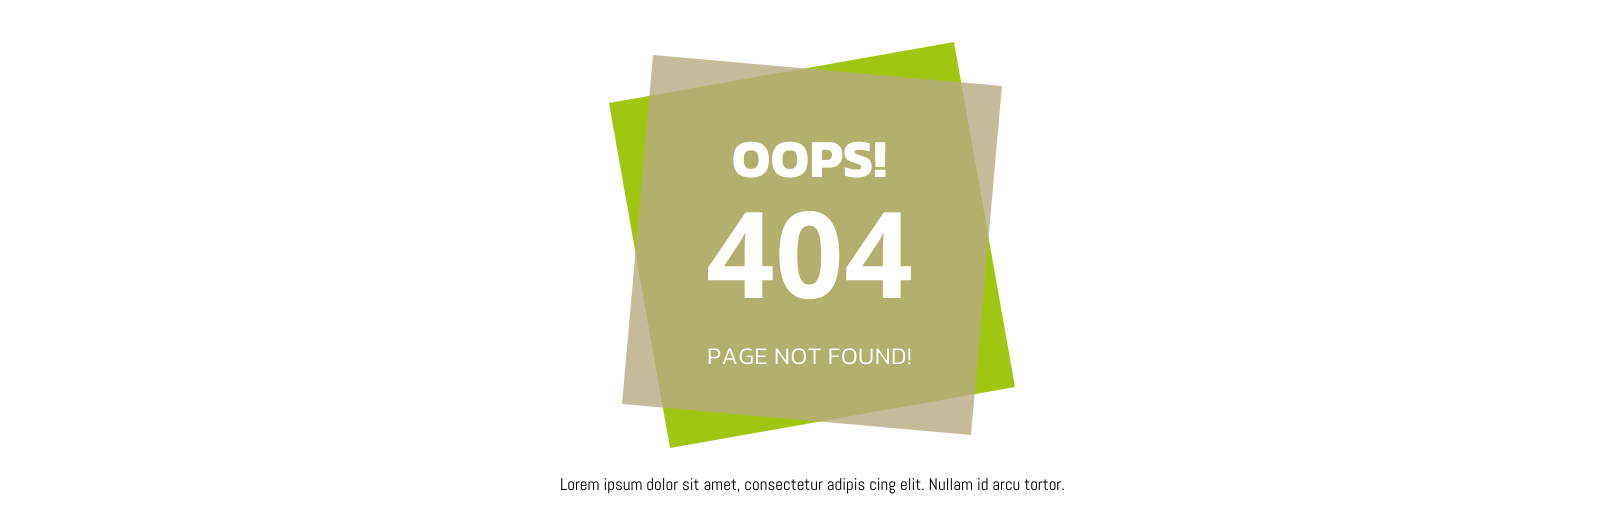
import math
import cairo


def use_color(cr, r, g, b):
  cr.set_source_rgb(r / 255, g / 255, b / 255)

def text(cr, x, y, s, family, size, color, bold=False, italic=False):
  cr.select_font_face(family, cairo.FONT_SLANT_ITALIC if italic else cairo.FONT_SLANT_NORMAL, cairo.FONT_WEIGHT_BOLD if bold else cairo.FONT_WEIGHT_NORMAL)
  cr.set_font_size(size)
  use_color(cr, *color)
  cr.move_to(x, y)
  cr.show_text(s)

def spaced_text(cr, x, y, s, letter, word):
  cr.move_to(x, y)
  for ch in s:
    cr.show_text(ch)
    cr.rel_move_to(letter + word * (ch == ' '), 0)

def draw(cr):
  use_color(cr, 255, 255, 255)
  cr.paint()
  use_color(cr, 161, 198, 17)
  cr.new_path()
  cr.move_to(954, 42)
  cr.line_to(1015, 387)
  cr.line_to(670, 448)
  cr.line_to(609, 103)
  cr.close_path()
  cr.fill()
  cr.set_source_rgba(0.722, 0.667, 0.514, 0.81)
  cr.new_path()
  cr.move_to(653, 55)
  cr.line_to(1002, 86)
  cr.line_to(971, 435)
  cr.line_to(622, 404)
  cr.close_path()
  cr.fill()
  cr.select_font_face("Kanit", cairo.FONT_SLANT_NORMAL, cairo.FONT_WEIGHT_BOLD)
  cr.set_font_size(54)
  use_color(cr, 255, 255, 255)
  spaced_text(cr, 732, 177, "OOPS!", 0.5, 0)
  cr.select_font_face("Open Sans", cairo.FONT_SLANT_NORMAL, cairo.FONT_WEIGHT_BOLD)
  cr.set_font_size(120)
  spaced_text(cr, 706, 298, "404", 0.5, 0)
  cr.select_font_face("Kanit Light")
  cr.set_font_size(24)
  spaced_text(cr, 707, 364, "PAGE NOT FOUND!", 0.5, 0)
  text(cr, 560, 490, "Lorem ipsum dolor sit amet, consectetur adipis cing elit. Nullam id arcu tortor.", "Abel", 17, (0, 0, 0))


surface = cairo.ImageSurface(cairo.FORMAT_RGB24, 1624, 508)
cr = cairo.Context(surface)
options = cairo.FontOptions()
options.set_hint_metrics(cairo.HINT_METRICS_OFF)
options.set_hint_style(cairo.HINT_STYLE_NONE)
cr.set_font_options(options)
cr.set_miter_limit(4)
draw(cr)
surface.write_to_png("out.png")
